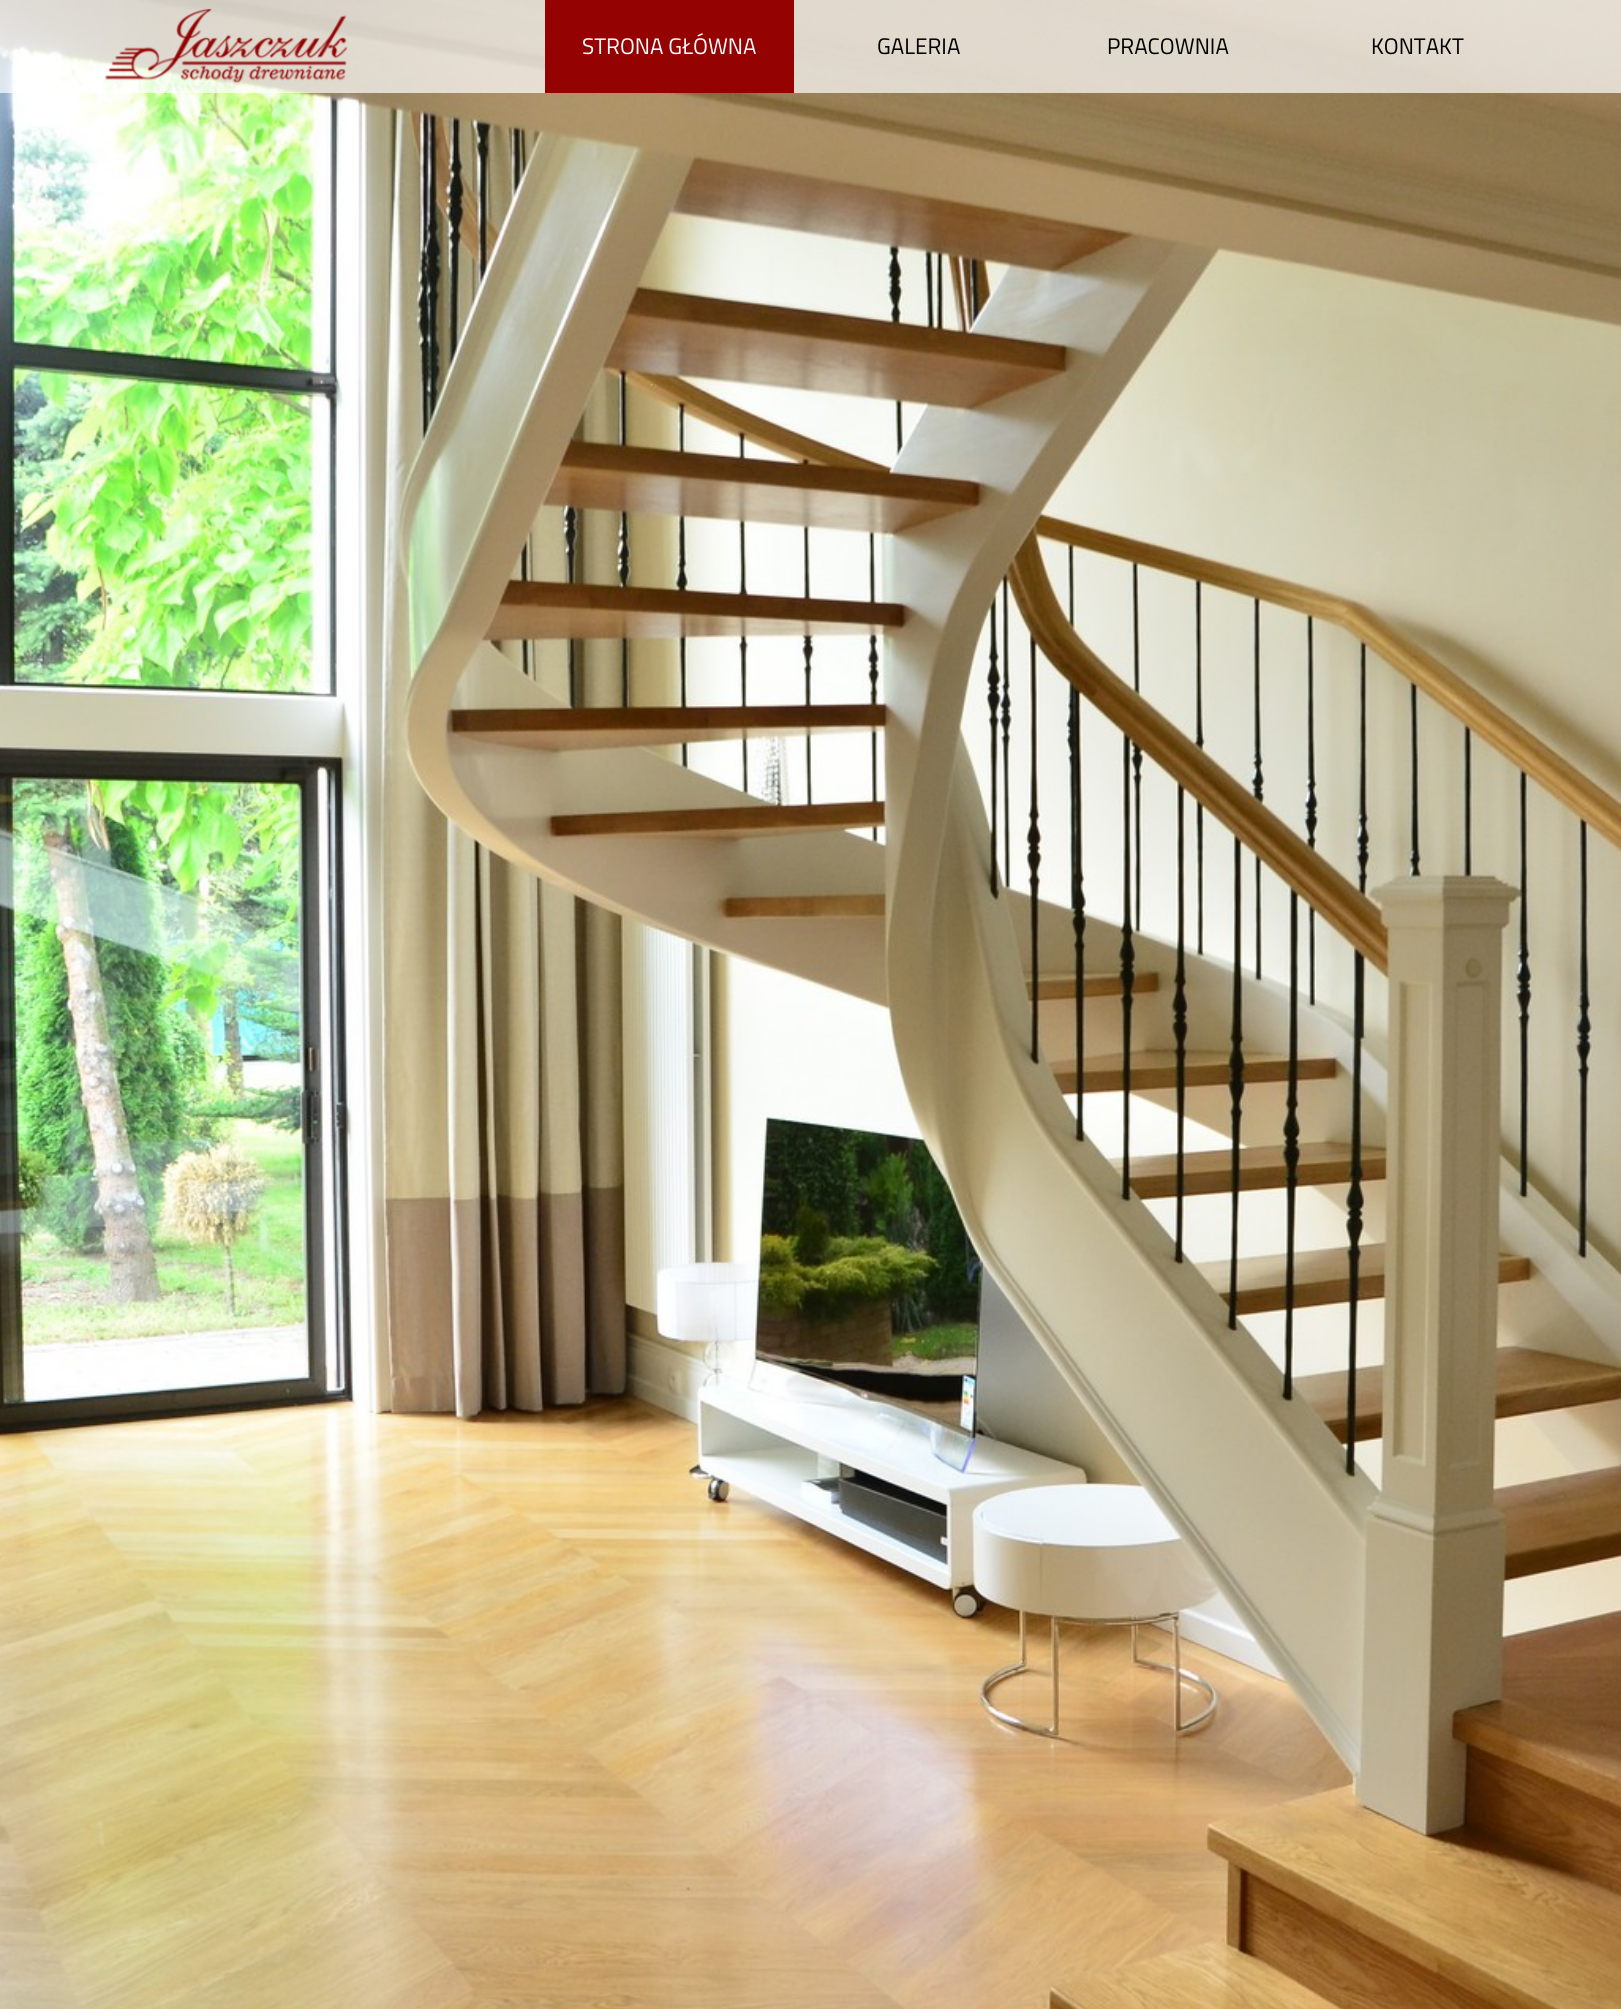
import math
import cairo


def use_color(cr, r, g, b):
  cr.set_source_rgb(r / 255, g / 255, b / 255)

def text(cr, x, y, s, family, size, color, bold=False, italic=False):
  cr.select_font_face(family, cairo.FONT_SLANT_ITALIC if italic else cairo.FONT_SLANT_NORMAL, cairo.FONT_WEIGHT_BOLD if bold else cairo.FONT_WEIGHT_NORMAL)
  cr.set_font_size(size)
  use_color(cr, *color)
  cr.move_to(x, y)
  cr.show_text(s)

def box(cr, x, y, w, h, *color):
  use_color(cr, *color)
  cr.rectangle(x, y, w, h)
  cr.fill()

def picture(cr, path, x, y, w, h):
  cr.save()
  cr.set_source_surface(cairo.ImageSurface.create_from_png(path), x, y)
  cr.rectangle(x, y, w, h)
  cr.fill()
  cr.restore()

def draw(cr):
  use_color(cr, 255, 255, 255)
  cr.paint()
  picture(cr, "img_01.png", 0, 0, 1621, 2009)
  cr.set_source_rgba(1, 1, 1, 0.7)
  cr.rectangle(0, 0, 1621, 93)
  cr.fill()
  picture(cr, "img_02.png", 105, 8, 243, 75)
  box(cr, 545, 0, 249, 93, 148, 2, 2)
  text(cr, 582, 54, "STRONA GŁÓWNA", "Titillium Web", 22.5, (255, 255, 255))
  text(cr, 877, 54, "GALERIA", "Titillium Web", 22.5, (0, 0, 0))
  text(cr, 1107, 54, "PRACOWNIA", "Titillium Web", 22.5, (0, 0, 0))
  text(cr, 1371, 54, "KONTAKT", "Titillium Web", 22.5, (0, 0, 0))


surface = cairo.ImageSurface(cairo.FORMAT_RGB24, 1621, 2009)
cr = cairo.Context(surface)
options = cairo.FontOptions()
options.set_hint_metrics(cairo.HINT_METRICS_OFF)
options.set_hint_style(cairo.HINT_STYLE_NONE)
cr.set_font_options(options)
cr.set_miter_limit(4)
draw(cr)
surface.write_to_png("out.png")
